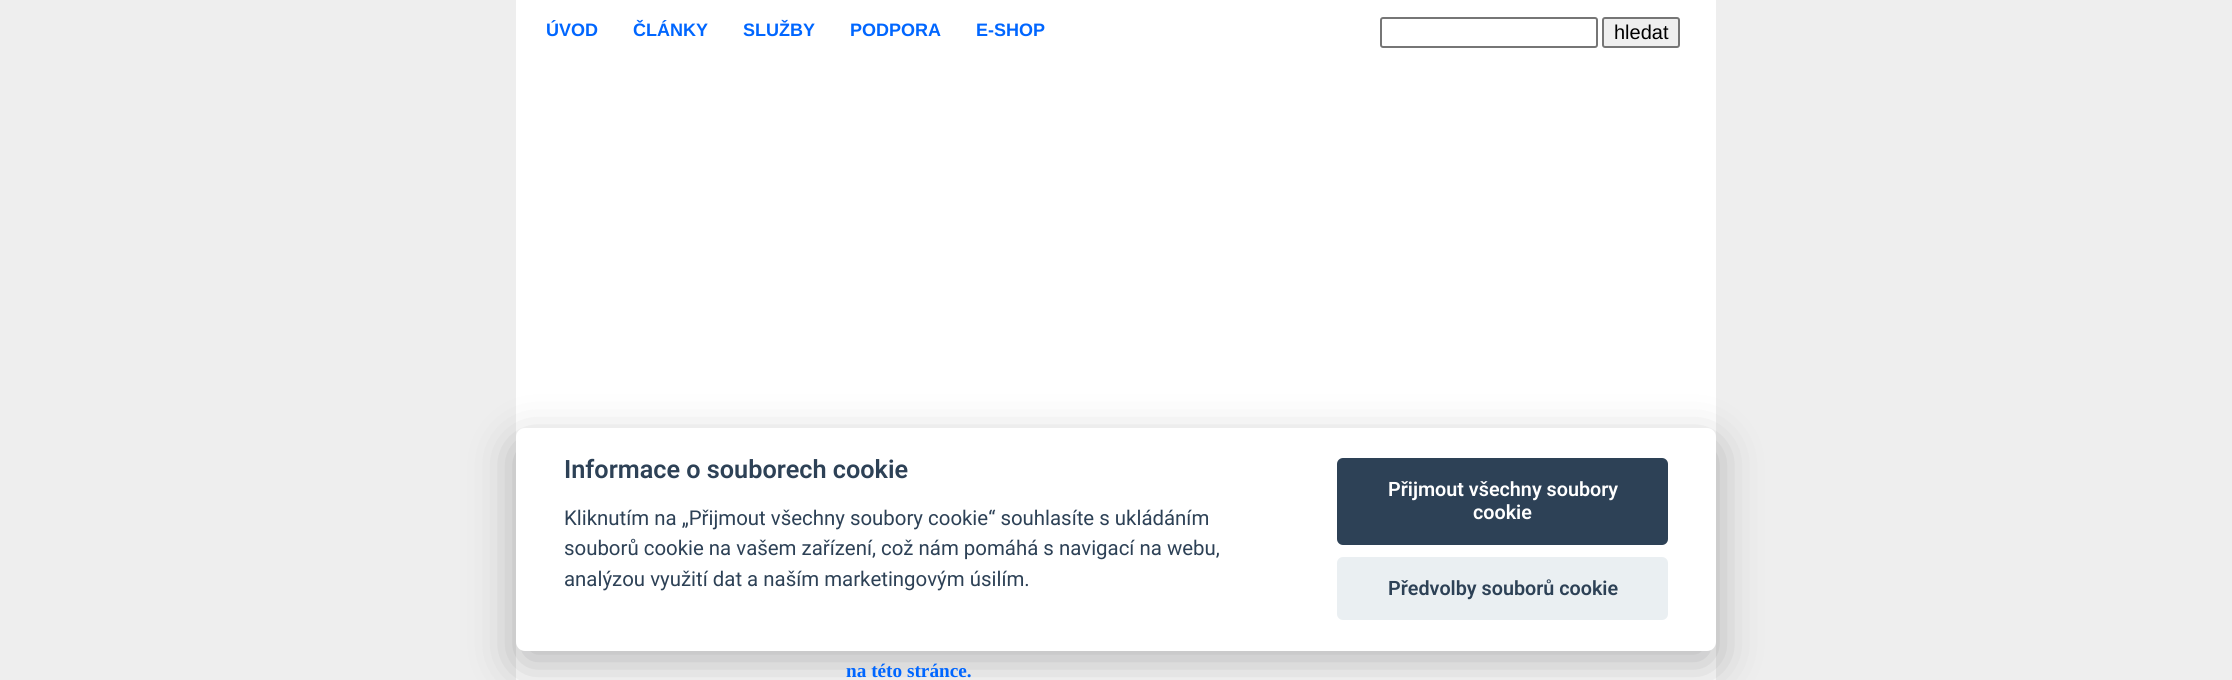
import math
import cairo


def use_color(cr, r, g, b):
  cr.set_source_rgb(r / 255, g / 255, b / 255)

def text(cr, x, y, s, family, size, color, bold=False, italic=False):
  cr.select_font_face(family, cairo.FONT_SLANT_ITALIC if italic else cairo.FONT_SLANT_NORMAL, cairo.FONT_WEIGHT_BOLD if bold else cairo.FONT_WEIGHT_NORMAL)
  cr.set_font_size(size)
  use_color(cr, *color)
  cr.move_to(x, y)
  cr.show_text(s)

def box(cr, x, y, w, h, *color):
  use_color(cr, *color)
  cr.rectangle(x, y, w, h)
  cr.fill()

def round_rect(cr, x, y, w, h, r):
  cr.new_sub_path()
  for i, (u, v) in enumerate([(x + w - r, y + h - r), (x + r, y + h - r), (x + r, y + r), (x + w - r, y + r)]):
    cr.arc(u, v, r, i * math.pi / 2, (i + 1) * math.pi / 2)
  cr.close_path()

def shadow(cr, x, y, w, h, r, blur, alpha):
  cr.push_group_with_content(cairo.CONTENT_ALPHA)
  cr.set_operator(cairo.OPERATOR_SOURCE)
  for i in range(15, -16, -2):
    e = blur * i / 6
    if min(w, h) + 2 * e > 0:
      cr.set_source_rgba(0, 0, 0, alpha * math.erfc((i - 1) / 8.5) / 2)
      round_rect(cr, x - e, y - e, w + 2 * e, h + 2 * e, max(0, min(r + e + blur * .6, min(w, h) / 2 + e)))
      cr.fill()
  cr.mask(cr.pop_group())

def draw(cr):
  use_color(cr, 238, 238, 238)
  cr.paint()
  box(cr, 516, 0, 1200, 680, 255, 255, 255)
  round_rect(cr, 1381, 18, 216, 29, 2)
  use_color(cr, 118, 118, 118)
  cr.stroke()
  use_color(cr, 239, 239, 239)
  round_rect(cr, 1603, 18, 76, 29, 2)
  cr.fill_preserve()
  use_color(cr, 118, 118, 118)
  cr.stroke()
  use_color(cr, 2, 2, 3)
  shadow(cr, 516, 443, 1200, 223, 9, 22.5, 0.28)
  use_color(cr, 255, 255, 255)
  round_rect(cr, 516, 428, 1200, 223, 9)
  cr.fill()
  use_color(cr, 45, 65, 86)
  round_rect(cr, 1337, 458, 331, 87, 6)
  cr.fill()
  use_color(cr, 234, 239, 242)
  round_rect(cr, 1337, 557, 331, 63, 6)
  cr.fill()
  text(cr, 546, 36, "ÚVOD", "Liberation Sans", 18, (0, 102, 255), bold=True)
  text(cr, 633, 36, "ČLÁNKY", "Liberation Sans", 18, (0, 102, 255), bold=True)
  text(cr, 743, 36, "SLUŽBY", "Liberation Sans", 18, (0, 102, 255), bold=True)
  text(cr, 850, 36, "PODPORA", "Liberation Sans", 18, (0, 102, 255), bold=True)
  text(cr, 976, 36, "E-SHOP", "Liberation Sans", 18, (0, 102, 255), bold=True)
  text(cr, 1614, 39, "hledat", "Liberation Sans", 20, (0, 0, 0))
  text(cr, 846, 677, "na této stránce.", "Liberation Serif", 19.25, (0, 102, 255), bold=True)
  text(cr, 564, 478, "Informace o souborech cookie", "Roboto SemiBold", 25.25, (45, 65, 86))
  text(cr, 564, 525, "Kliknutím na „Přijmout všechny soubory cookie“ souhlasíte s ukládáním", "Roboto", 20.4, (45, 65, 86))
  text(cr, 564, 555, "souborů cookie na vašem zařízení, což nám pomáhá s navigací na webu,", "Roboto", 20.4, (45, 65, 86))
  text(cr, 564, 586, "analýzou využití dat a naším marketingovým úsilím.", "Roboto", 20.4, (45, 65, 86))
  text(cr, 1388, 496, "Přijmout všechny soubory", "Roboto SemiBold", 19.75, (255, 255, 255))
  text(cr, 1473, 519, "cookie", "Roboto SemiBold", 19.75, (255, 255, 255))
  text(cr, 1388, 595, "Předvolby souborů cookie", "Roboto SemiBold", 19.75, (45, 65, 86))


surface = cairo.ImageSurface(cairo.FORMAT_RGB24, 2232, 680)
cr = cairo.Context(surface)
options = cairo.FontOptions()
options.set_hint_metrics(cairo.HINT_METRICS_OFF)
options.set_hint_style(cairo.HINT_STYLE_NONE)
cr.set_font_options(options)
cr.set_miter_limit(4)
draw(cr)
surface.write_to_png("out.png")
